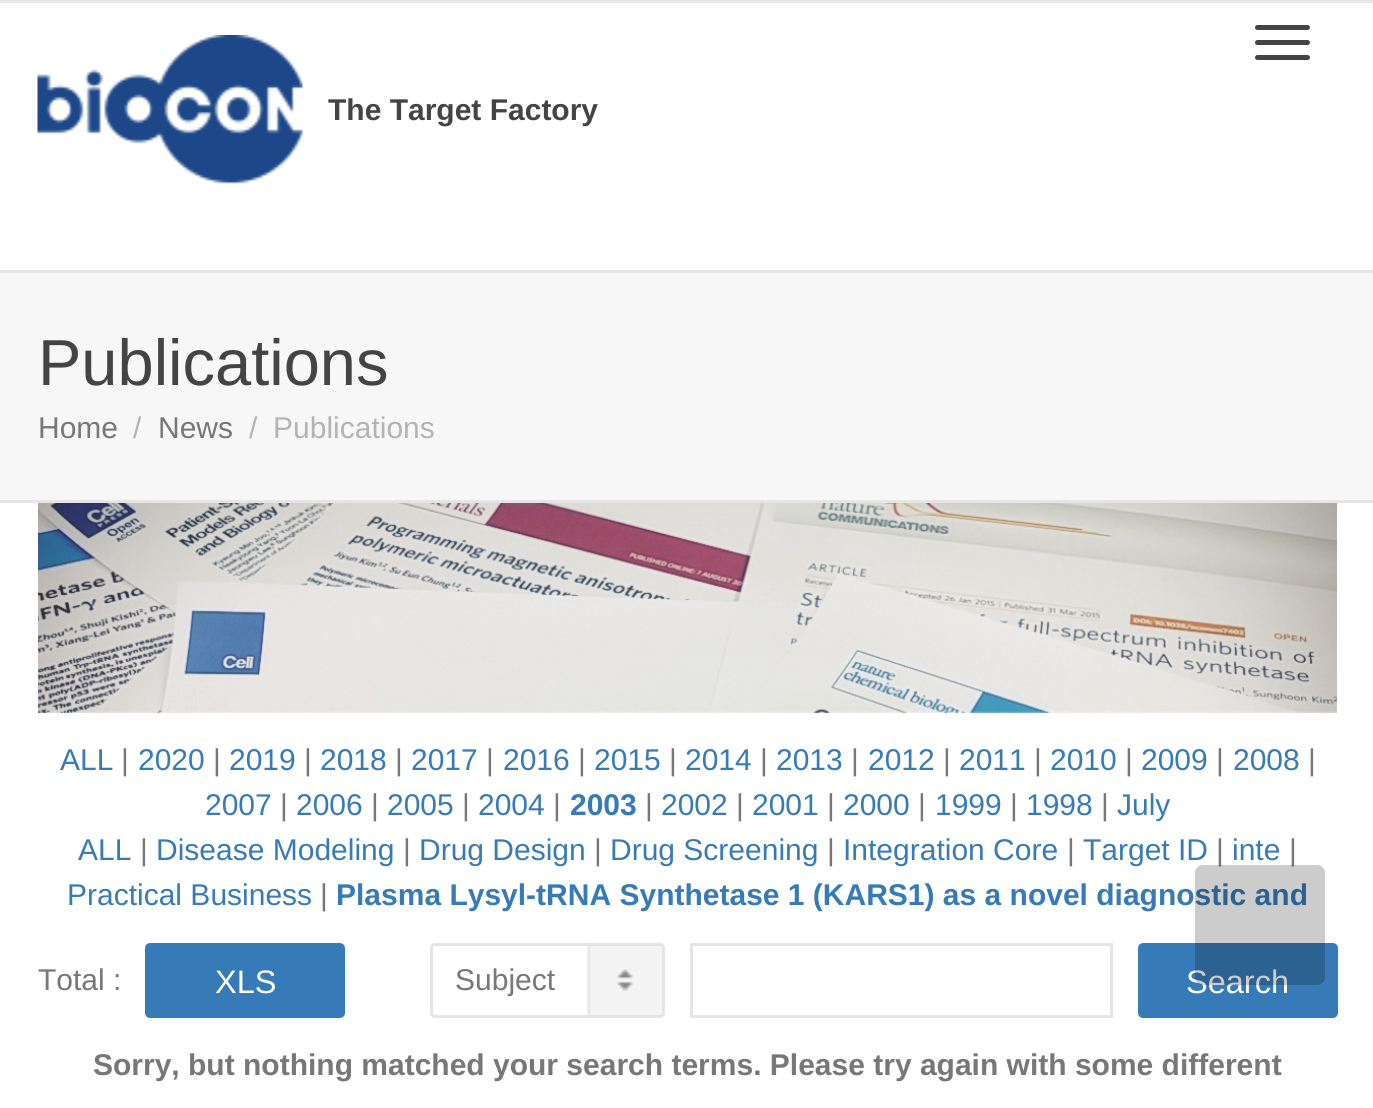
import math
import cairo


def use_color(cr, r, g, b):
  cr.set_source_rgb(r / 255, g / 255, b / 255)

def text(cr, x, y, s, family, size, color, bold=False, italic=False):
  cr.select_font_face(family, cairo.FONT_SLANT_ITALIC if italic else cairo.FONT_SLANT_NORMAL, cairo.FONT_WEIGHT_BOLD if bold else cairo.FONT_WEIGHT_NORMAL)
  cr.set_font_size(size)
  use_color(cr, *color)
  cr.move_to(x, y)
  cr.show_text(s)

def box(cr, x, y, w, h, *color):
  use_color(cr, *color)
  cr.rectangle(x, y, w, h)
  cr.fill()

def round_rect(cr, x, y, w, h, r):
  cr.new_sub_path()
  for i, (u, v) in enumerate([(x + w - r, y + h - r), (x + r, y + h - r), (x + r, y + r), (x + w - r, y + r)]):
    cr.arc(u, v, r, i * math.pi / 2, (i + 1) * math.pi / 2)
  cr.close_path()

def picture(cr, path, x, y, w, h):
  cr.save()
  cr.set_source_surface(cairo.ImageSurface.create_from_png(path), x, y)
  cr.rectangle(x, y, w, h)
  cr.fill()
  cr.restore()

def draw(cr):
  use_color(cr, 255, 255, 255)
  cr.paint()
  box(cr, 0, 0, 1373, 3, 229, 229, 229)
  box(cr, 0, 270, 1373, 3, 229, 229, 229)
  picture(cr, "img_01.png", 37, 35, 266, 149)
  use_color(cr, 68, 68, 68)
  round_rect(cr, 1255, 25, 55, 5, 2.5)
  cr.fill()
  round_rect(cr, 1255, 40, 55, 5, 2.5)
  cr.fill()
  round_rect(cr, 1255, 55, 55, 5, 2.5)
  cr.fill()
  box(cr, 0, 273, 1373, 227, 247, 247, 247)
  box(cr, 0, 500, 1373, 3, 229, 229, 229)
  picture(cr, "img_02.png", 38, 503, 1299, 210)
  use_color(cr, 54, 123, 183)
  round_rect(cr, 146.5, 944.5, 197, 72, 3.5)
  cr.fill_preserve()
  cr.set_line_width(3)
  cr.stroke()
  picture(cr, "img_03.png", 587, 942, 76, 73)
  round_rect(cr, 431.5, 944.5, 232, 72, 3.5)
  use_color(cr, 229, 229, 229)
  cr.stroke()
  cr.rectangle(691.5, 944.5, 420, 72)
  cr.stroke()
  use_color(cr, 54, 123, 183)
  round_rect(cr, 1139.5, 944.5, 197, 72, 3.5)
  cr.fill_preserve()
  cr.stroke()
  text(cr, 328, 120, "The Target Factory", "Liberation Sans", 30, (68, 68, 68), bold=True)
  text(cr, 38, 385, "Publications", "Liberation Sans", 65, (68, 68, 68))
  text(cr, 38, 438, "Home", "Liberation Sans", 30, (119, 119, 119))
  text(cr, 133, 438, "/", "Liberation Sans", 30, (179, 179, 179))
  text(cr, 158, 438, "News", "Liberation Sans", 30, (119, 119, 119))
  text(cr, 249, 438, "/", "Liberation Sans", 30, (179, 179, 179))
  text(cr, 273, 438, "Publications", "Liberation Sans", 30, (179, 179, 179))
  text(cr, 60, 770, "ALL", "Liberation Sans", 30, (54, 123, 183))
  text(cr, 121, 770, "|", "Liberation Sans", 30, (119, 119, 119))
  text(cr, 138, 770, "2020", "Liberation Sans", 30, (54, 123, 183))
  text(cr, 213, 770, "|", "Liberation Sans", 30, (119, 119, 119))
  text(cr, 229, 770, "2019", "Liberation Sans", 30, (54, 123, 183))
  text(cr, 304, 770, "|", "Liberation Sans", 30, (119, 119, 119))
  text(cr, 320, 770, "2018", "Liberation Sans", 30, (54, 123, 183))
  text(cr, 395, 770, "|", "Liberation Sans", 30, (119, 119, 119))
  text(cr, 411, 770, "2017", "Liberation Sans", 30, (54, 123, 183))
  text(cr, 486, 770, "|", "Liberation Sans", 30, (119, 119, 119))
  text(cr, 503, 770, "2016", "Liberation Sans", 30, (54, 123, 183))
  text(cr, 578, 770, "|", "Liberation Sans", 30, (119, 119, 119))
  text(cr, 594, 770, "2015", "Liberation Sans", 30, (54, 123, 183))
  text(cr, 669, 770, "|", "Liberation Sans", 30, (119, 119, 119))
  text(cr, 685, 770, "2014", "Liberation Sans", 30, (54, 123, 183))
  text(cr, 760, 770, "|", "Liberation Sans", 30, (119, 119, 119))
  text(cr, 776, 770, "2013", "Liberation Sans", 30, (54, 123, 183))
  text(cr, 851, 770, "|", "Liberation Sans", 30, (119, 119, 119))
  text(cr, 868, 770, "2012", "Liberation Sans", 30, (54, 123, 183))
  text(cr, 943, 770, "|", "Liberation Sans", 30, (119, 119, 119))
  text(cr, 959, 770, "2011", "Liberation Sans", 30, (54, 123, 183))
  text(cr, 1034, 770, "|", "Liberation Sans", 30, (119, 119, 119))
  text(cr, 1050, 770, "2010", "Liberation Sans", 30, (54, 123, 183))
  text(cr, 1125, 770, "|", "Liberation Sans", 30, (119, 119, 119))
  text(cr, 1141, 770, "2009", "Liberation Sans", 30, (54, 123, 183))
  text(cr, 1216, 770, "|", "Liberation Sans", 30, (119, 119, 119))
  text(cr, 1233, 770, "2008", "Liberation Sans", 30, (54, 123, 183))
  text(cr, 1308, 770, "|", "Liberation Sans", 30, (119, 119, 119))
  text(cr, 205, 815, "2007", "Liberation Sans", 30, (54, 123, 183))
  text(cr, 280, 815, "|", "Liberation Sans", 30, (119, 119, 119))
  text(cr, 296, 815, "2006", "Liberation Sans", 30, (54, 123, 183))
  text(cr, 371, 815, "|", "Liberation Sans", 30, (119, 119, 119))
  text(cr, 387, 815, "2005", "Liberation Sans", 30, (54, 123, 183))
  text(cr, 462, 815, "|", "Liberation Sans", 30, (119, 119, 119))
  text(cr, 478, 815, "2004", "Liberation Sans", 30, (54, 123, 183))
  text(cr, 553, 815, "|", "Liberation Sans", 30, (119, 119, 119))
  text(cr, 570, 815, "2003", "Liberation Sans", 30, (54, 123, 183), bold=True)
  text(cr, 645, 815, "|", "Liberation Sans", 30, (119, 119, 119))
  text(cr, 661, 815, "2002", "Liberation Sans", 30, (54, 123, 183))
  text(cr, 736, 815, "|", "Liberation Sans", 30, (119, 119, 119))
  text(cr, 752, 815, "2001", "Liberation Sans", 30, (54, 123, 183))
  text(cr, 827, 815, "|", "Liberation Sans", 30, (119, 119, 119))
  text(cr, 843, 815, "2000", "Liberation Sans", 30, (54, 123, 183))
  text(cr, 918, 815, "|", "Liberation Sans", 30, (119, 119, 119))
  text(cr, 935, 815, "1999", "Liberation Sans", 30, (54, 123, 183))
  text(cr, 1010, 815, "|", "Liberation Sans", 30, (119, 119, 119))
  text(cr, 1026, 815, "1998", "Liberation Sans", 30, (54, 123, 183))
  text(cr, 1101, 815, "|", "Liberation Sans", 30, (119, 119, 119))
  text(cr, 1117, 815, "July", "Liberation Sans", 30, (54, 123, 183))
  text(cr, 78, 860, "ALL", "Liberation Sans", 30, (54, 123, 183))
  text(cr, 140, 860, "|", "Liberation Sans", 30, (119, 119, 119))
  text(cr, 156, 860, "Disease Modeling", "Liberation Sans", 30, (54, 123, 183))
  text(cr, 403, 860, "|", "Liberation Sans", 30, (119, 119, 119))
  text(cr, 419, 860, "Drug Design", "Liberation Sans", 30, (54, 123, 183))
  text(cr, 594, 860, "|", "Liberation Sans", 30, (119, 119, 119))
  text(cr, 610, 860, "Drug Screening", "Liberation Sans", 30, (54, 123, 183))
  text(cr, 827, 860, "|", "Liberation Sans", 30, (119, 119, 119))
  text(cr, 843, 860, "Integration Core", "Liberation Sans", 30, (54, 123, 183))
  text(cr, 1067, 860, "|", "Liberation Sans", 30, (119, 119, 119))
  text(cr, 1083, 860, "Target ID", "Liberation Sans", 30, (54, 123, 183))
  text(cr, 1216, 860, "|", "Liberation Sans", 30, (119, 119, 119))
  text(cr, 1232, 860, "inte", "Liberation Sans", 30, (54, 123, 183))
  text(cr, 1289, 860, "|", "Liberation Sans", 30, (119, 119, 119))
  text(cr, 67, 905, "Practical Business", "Liberation Sans", 30, (54, 123, 183))
  text(cr, 320, 905, "|", "Liberation Sans", 30, (119, 119, 119))
  text(cr, 336, 905, "Plasma Lysyl-tRNA Synthetase 1 (KARS1) as a novel diagnostic and", "Liberation Sans", 30, (54, 123, 183), bold=True)
  text(cr, 38, 990, "Total :", "Liberation Sans", 30, (119, 119, 119))
  text(cr, 215, 993, "XLS", "Liberation Sans", 32.5, (255, 255, 255))
  text(cr, 455, 990, "Subject", "Liberation Sans", 30, (119, 119, 119))
  text(cr, 1186, 993, "Search", "Liberation Sans", 32.5, (255, 255, 255))
  text(cr, 93, 1075, "Sorry, but nothing matched your search terms. Please try again with some different", "Liberation Sans", 30, (119, 119, 119), bold=True)
  cr.set_source_rgba(0, 0, 0, 0.2)
  round_rect(cr, 1195, 865, 130, 120, 8)
  cr.fill()


surface = cairo.ImageSurface(cairo.FORMAT_RGB24, 1373, 1108)
cr = cairo.Context(surface)
options = cairo.FontOptions()
options.set_hint_metrics(cairo.HINT_METRICS_OFF)
options.set_hint_style(cairo.HINT_STYLE_NONE)
cr.set_font_options(options)
cr.set_miter_limit(4)
draw(cr)
surface.write_to_png("out.png")
